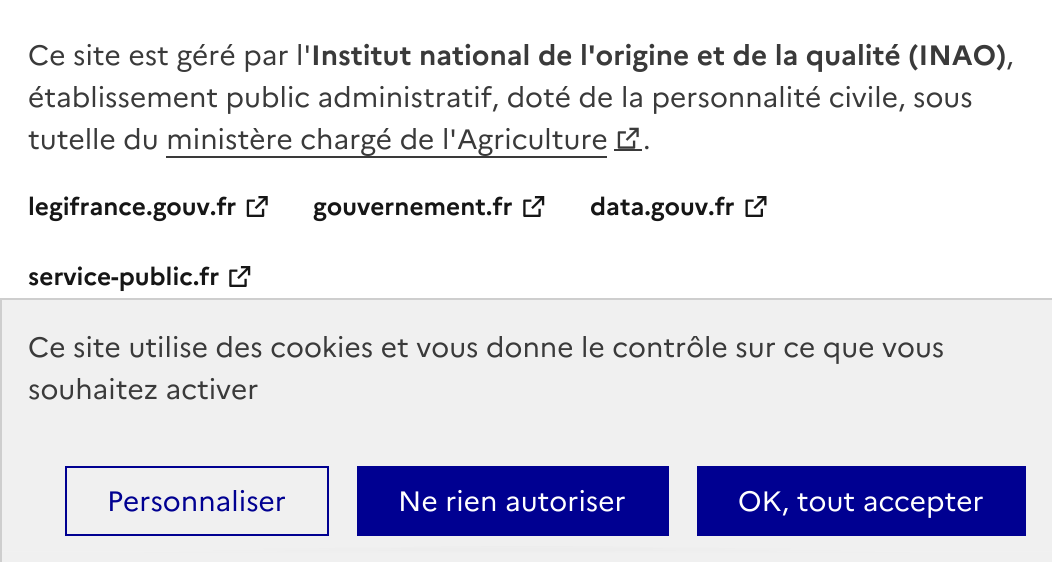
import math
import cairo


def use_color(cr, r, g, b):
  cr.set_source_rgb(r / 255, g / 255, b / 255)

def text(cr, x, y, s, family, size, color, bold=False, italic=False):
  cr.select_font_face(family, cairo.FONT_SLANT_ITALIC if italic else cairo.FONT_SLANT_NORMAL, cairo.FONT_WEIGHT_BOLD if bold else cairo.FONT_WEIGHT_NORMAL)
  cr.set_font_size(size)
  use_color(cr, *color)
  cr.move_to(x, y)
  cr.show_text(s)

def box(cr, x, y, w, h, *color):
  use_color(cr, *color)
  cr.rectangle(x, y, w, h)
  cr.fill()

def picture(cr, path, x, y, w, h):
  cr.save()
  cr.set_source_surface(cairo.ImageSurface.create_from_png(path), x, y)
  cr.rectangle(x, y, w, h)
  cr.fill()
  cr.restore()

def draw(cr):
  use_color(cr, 255, 255, 255)
  cr.paint()
  box(cr, 166, 156, 441, 2, 58, 58, 58)
  box(cr, 614, 149, 28, 2, 58, 58, 58)
  picture(cr, "img_01.png", 617, 127, 22, 22)
  picture(cr, "img_02.png", 246, 196, 22, 21)
  picture(cr, "img_03.png", 523, 196, 22, 21)
  picture(cr, "img_04.png", 745, 196, 22, 21)
  picture(cr, "img_03.png", 229, 266, 22, 21)
  box(cr, 2, 308, 1050, 238, 240, 240, 240)
  gradient = cairo.RadialGradient(0, 0, 0, 0, 0, 1)
  gradient.set_matrix(cairo.Matrix(1 / 527, 0, 0, 1 / 18, -1 * 527 / 527, -1 * 564 / 18))
  gradient.add_color_stop_rgba(0, 0.537, 0.537, 0.537, 1)
  gradient.add_color_stop_rgba(1, 0.941, 0.941, 0.941, 1)
  cr.set_source(gradient)
  cr.rectangle(2, 546, 1050, 7)
  cr.fill()
  gradient = cairo.LinearGradient(527, 532, 527, 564)
  gradient.add_color_stop_rgba(0, 0.941, 0.941, 0.941, 0)
  gradient.add_color_stop_rgba(0.66, 0.941, 0.941, 0.941, 1)
  cr.set_source(gradient)
  cr.rectangle(2, 547, 1050, 15)
  cr.fill()
  gradient = cairo.LinearGradient(527, 297, 527, 329)
  gradient.add_color_stop_rgba(0.33, 0.941, 0.941, 0.941, 1)
  gradient.add_color_stop_rgba(1, 0.941, 0.941, 0.941, 0)
  cr.set_source(gradient)
  cr.rectangle(2, 300, 1050, 8)
  cr.fill()
  cr.rectangle(1, 299, 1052, 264)
  use_color(cr, 206, 206, 206)
  cr.stroke()
  cr.rectangle(66, 467, 262, 68)
  use_color(cr, 0, 0, 145)
  cr.stroke()
  box(cr, 357, 466, 312, 70, 0, 0, 145)
  box(cr, 697, 466, 329, 70, 0, 0, 145)
  text(cr, 28, 65, "Ce site est géré par l'", "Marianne", 28, (58, 58, 58))
  text(cr, 311, 65, "Institut national de l'origine et de la qualité (INAO)", "Marianne", 28, (58, 58, 58), bold=True)
  text(cr, 1006, 65, ",", "Marianne", 28, (58, 58, 58))
  text(cr, 28, 107, "établissement public administratif, doté de la personnalité civile, sous", "Marianne", 28, (58, 58, 58))
  text(cr, 28, 149, "tutelle du ministère chargé de l'Agriculture", "Marianne", 28, (58, 58, 58))
  text(cr, 643, 149, ".", "Marianne", 28, (58, 58, 58))
  text(cr, 28, 215, "legifrance.gouv.fr", "Marianne", 24.5, (22, 22, 22), bold=True)
  text(cr, 313, 215, "gouvernement.fr", "Marianne", 24.5, (22, 22, 22), bold=True)
  text(cr, 590, 215, "data.gouv.fr", "Marianne", 24.5, (22, 22, 22), bold=True)
  text(cr, 28, 285, "service-public.fr", "Marianne", 24.5, (22, 22, 22), bold=True)
  text(cr, 28, 357, "Ce site utilise des cookies et vous donne le contrôle sur ce que vous", "Marianne", 28, (58, 58, 58))
  text(cr, 28, 399, "souhaitez activer", "Marianne", 28, (58, 58, 58))
  text(cr, 107, 511, "Personnaliser", "Marianne", 28, (0, 0, 145))
  text(cr, 398, 511, "Ne rien autoriser", "Marianne", 28, (255, 255, 255))
  text(cr, 738, 511, "OK, tout accepter", "Marianne", 28, (255, 255, 255))


surface = cairo.ImageSurface(cairo.FORMAT_RGB24, 1052, 562)
cr = cairo.Context(surface)
options = cairo.FontOptions()
options.set_hint_metrics(cairo.HINT_METRICS_OFF)
options.set_hint_style(cairo.HINT_STYLE_NONE)
cr.set_font_options(options)
cr.set_miter_limit(4)
draw(cr)
surface.write_to_png("out.png")
